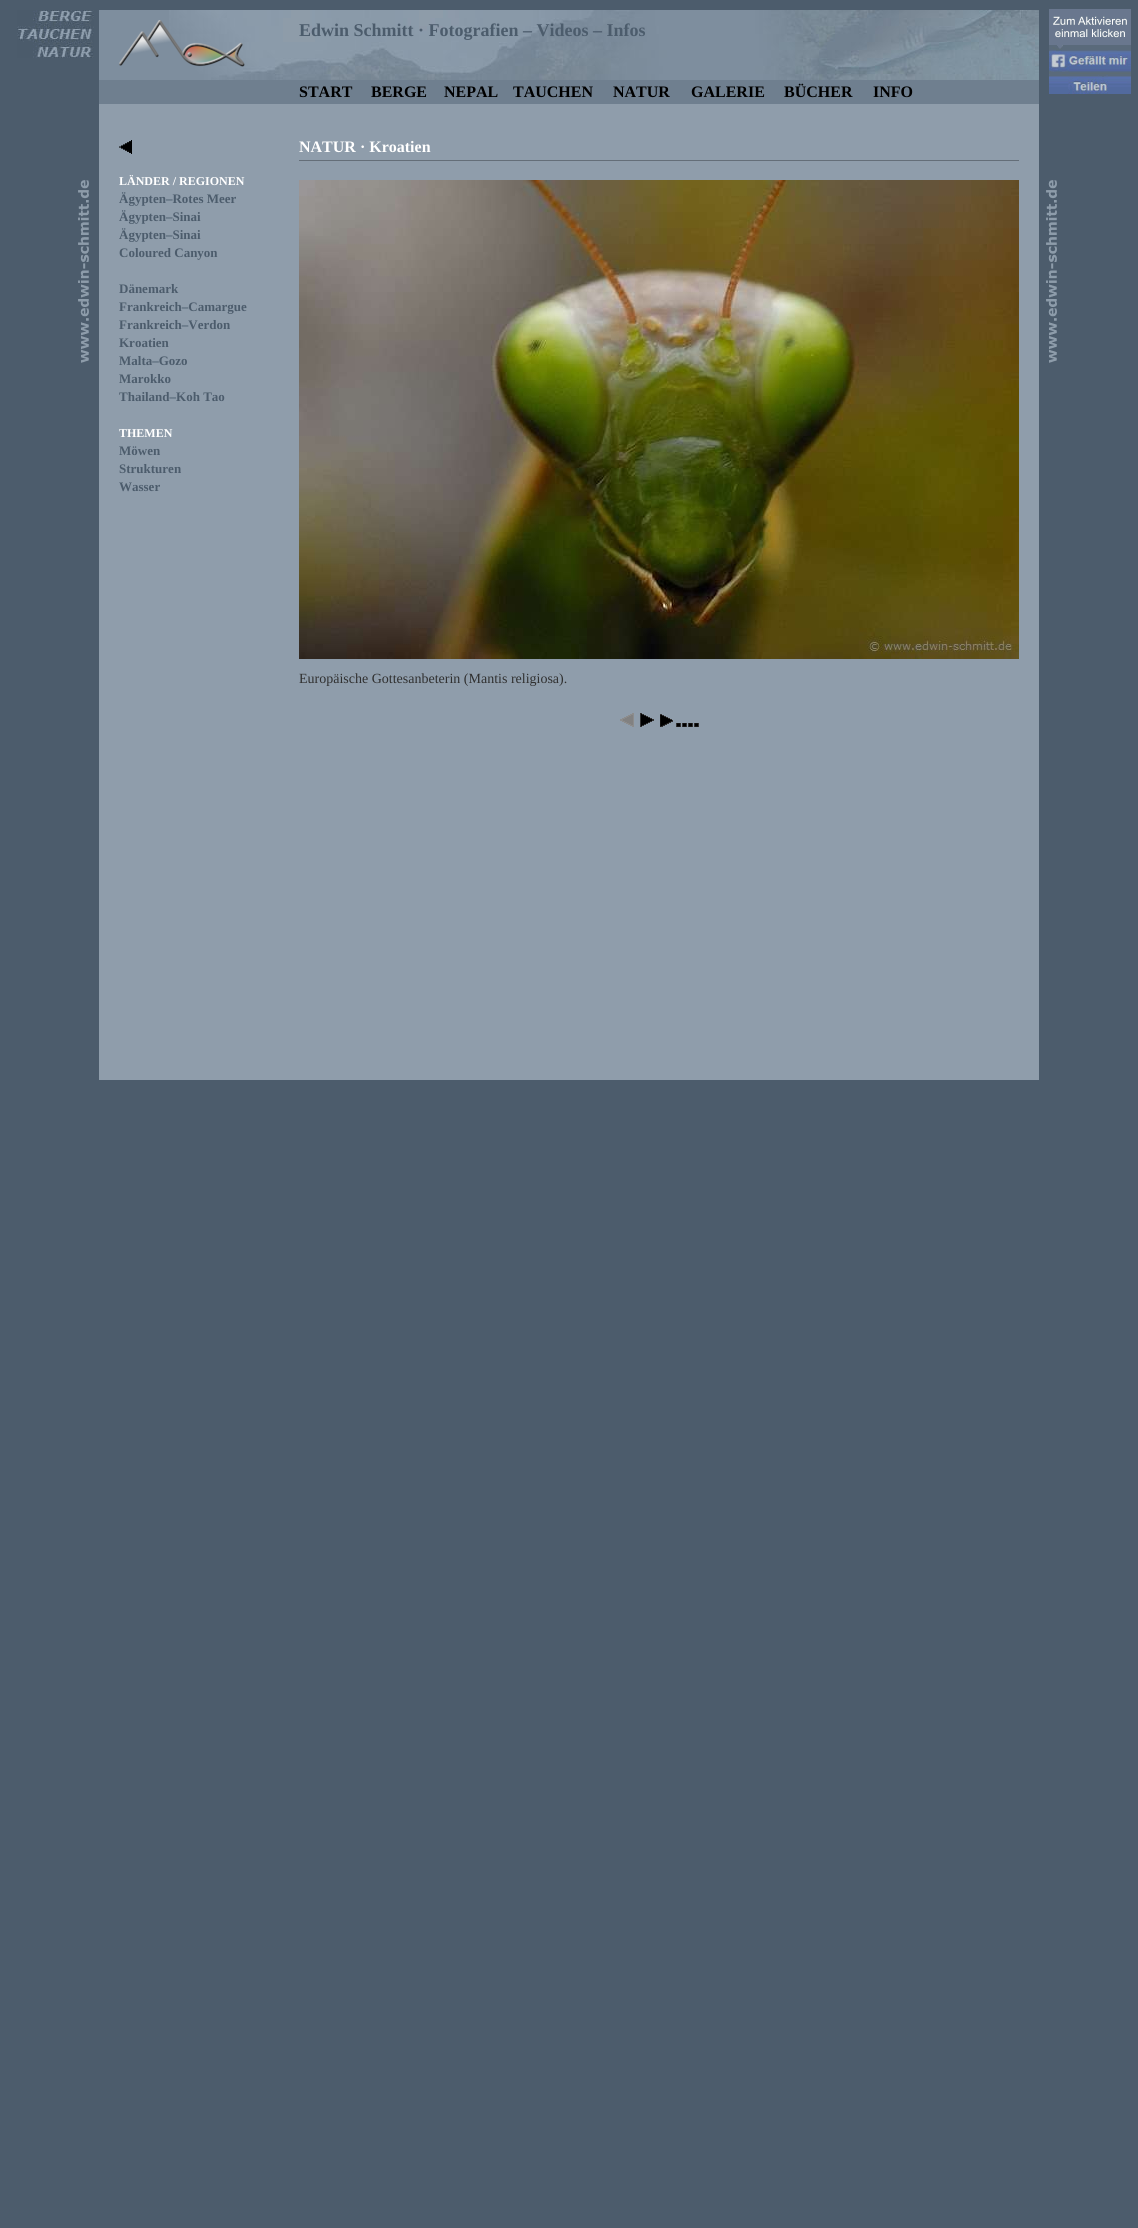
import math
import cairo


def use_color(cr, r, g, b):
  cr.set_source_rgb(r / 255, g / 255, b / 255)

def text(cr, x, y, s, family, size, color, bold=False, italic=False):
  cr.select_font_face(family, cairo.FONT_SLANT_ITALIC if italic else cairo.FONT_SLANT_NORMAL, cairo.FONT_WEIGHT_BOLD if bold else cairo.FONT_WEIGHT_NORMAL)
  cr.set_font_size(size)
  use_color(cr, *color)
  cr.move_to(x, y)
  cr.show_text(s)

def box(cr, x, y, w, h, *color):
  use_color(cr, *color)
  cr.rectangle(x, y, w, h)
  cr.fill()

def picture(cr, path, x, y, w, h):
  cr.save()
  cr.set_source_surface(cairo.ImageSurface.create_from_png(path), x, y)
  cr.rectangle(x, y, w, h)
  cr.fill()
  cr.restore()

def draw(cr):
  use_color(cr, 76, 92, 108)
  cr.paint()
  picture(cr, "img_01.png", 17, 10, 77, 48)
  box(cr, 99, 10, 70, 70, 126, 142, 158)
  picture(cr, "img_02.png", 169, 10, 870, 70)
  picture(cr, "img_03.png", 1049, 9, 82, 85)
  picture(cr, "img_04.png", 119, 20, 126, 47)
  box(cr, 99, 80, 940, 24, 111, 127, 143)
  box(cr, 99, 104, 940, 976, 143, 157, 171)
  box(cr, 299, 160, 720, 1, 100, 110, 120)
  picture(cr, "img_05.png", 78, 180, 11, 183)
  picture(cr, "img_06.png", 119, 140, 13, 14)
  picture(cr, "img_07.png", 299, 180, 720, 479)
  picture(cr, "img_05.png", 1046, 180, 11, 183)
  picture(cr, "img_08.png", 620, 713, 14, 14)
  picture(cr, "img_09.png", 640, 713, 14, 14)
  picture(cr, "img_10.png", 660, 714, 39, 13)
  text(cr, 299, 36, "Edwin Schmitt · Fotografien – Videos – Infos", "Liberation Serif", 18, (76, 92, 108), bold=True)
  text(cr, 299, 97, "START", "Liberation Serif", 16, (0, 0, 0), bold=True)
  text(cr, 371, 97, "BERGE", "Liberation Serif", 16, (0, 0, 0), bold=True)
  text(cr, 444, 97, "NEPAL", "Liberation Serif", 16, (0, 0, 0), bold=True)
  text(cr, 513, 97, "TAUCHEN", "Liberation Serif", 16, (0, 0, 0), bold=True)
  text(cr, 613, 97, "NATUR", "Liberation Serif", 16, (0, 0, 0), bold=True)
  text(cr, 691, 97, "GALERIE", "Liberation Serif", 16, (0, 0, 0), bold=True)
  text(cr, 784, 97, "BÜCHER", "Liberation Serif", 16, (0, 0, 0), bold=True)
  text(cr, 873, 97, "INFO", "Liberation Serif", 16, (0, 0, 0), bold=True)
  text(cr, 299, 152, "NATUR · Kroatien", "Liberation Serif", 16, (255, 255, 255), bold=True)
  text(cr, 119, 185, "LÄNDER / REGIONEN", "Liberation Serif", 12, (255, 255, 255), bold=True)
  text(cr, 119, 203, "Ägypten–Rotes Meer", "Liberation Serif", 13, (76, 92, 108), bold=True)
  text(cr, 119, 221, "Ägypten–Sinai", "Liberation Serif", 13, (76, 92, 108), bold=True)
  text(cr, 119, 239, "Ägypten–Sinai", "Liberation Serif", 13, (76, 92, 108), bold=True)
  text(cr, 119, 257, "Coloured Canyon", "Liberation Serif", 13, (76, 92, 108), bold=True)
  text(cr, 119, 293, "Dänemark", "Liberation Serif", 13, (76, 92, 108), bold=True)
  text(cr, 119, 311, "Frankreich–Camargue", "Liberation Serif", 13, (76, 92, 108), bold=True)
  text(cr, 119, 329, "Frankreich–Verdon", "Liberation Serif", 13, (76, 92, 108), bold=True)
  text(cr, 119, 347, "Kroatien", "Liberation Serif", 13, (76, 92, 108), bold=True)
  text(cr, 119, 365, "Malta–Gozo", "Liberation Serif", 13, (76, 92, 108), bold=True)
  text(cr, 119, 383, "Marokko", "Liberation Serif", 13, (76, 92, 108), bold=True)
  text(cr, 119, 401, "Thailand–Koh Tao", "Liberation Serif", 13, (76, 92, 108), bold=True)
  text(cr, 119, 437, "THEMEN", "Liberation Serif", 12, (255, 255, 255), bold=True)
  text(cr, 119, 455, "Möwen", "Liberation Serif", 13, (76, 92, 108), bold=True)
  text(cr, 119, 473, "Strukturen", "Liberation Serif", 13, (76, 92, 108), bold=True)
  text(cr, 119, 491, "Wasser", "Liberation Serif", 13, (76, 92, 108), bold=True)
  text(cr, 299, 683, "Europäische Gottesanbeterin (Mantis religiosa).", "Liberation Serif", 14, (48, 48, 48))


surface = cairo.ImageSurface(cairo.FORMAT_RGB24, 1138, 2228)
cr = cairo.Context(surface)
options = cairo.FontOptions()
options.set_hint_metrics(cairo.HINT_METRICS_OFF)
options.set_hint_style(cairo.HINT_STYLE_NONE)
cr.set_font_options(options)
cr.set_miter_limit(4)
draw(cr)
surface.write_to_png("out.png")
